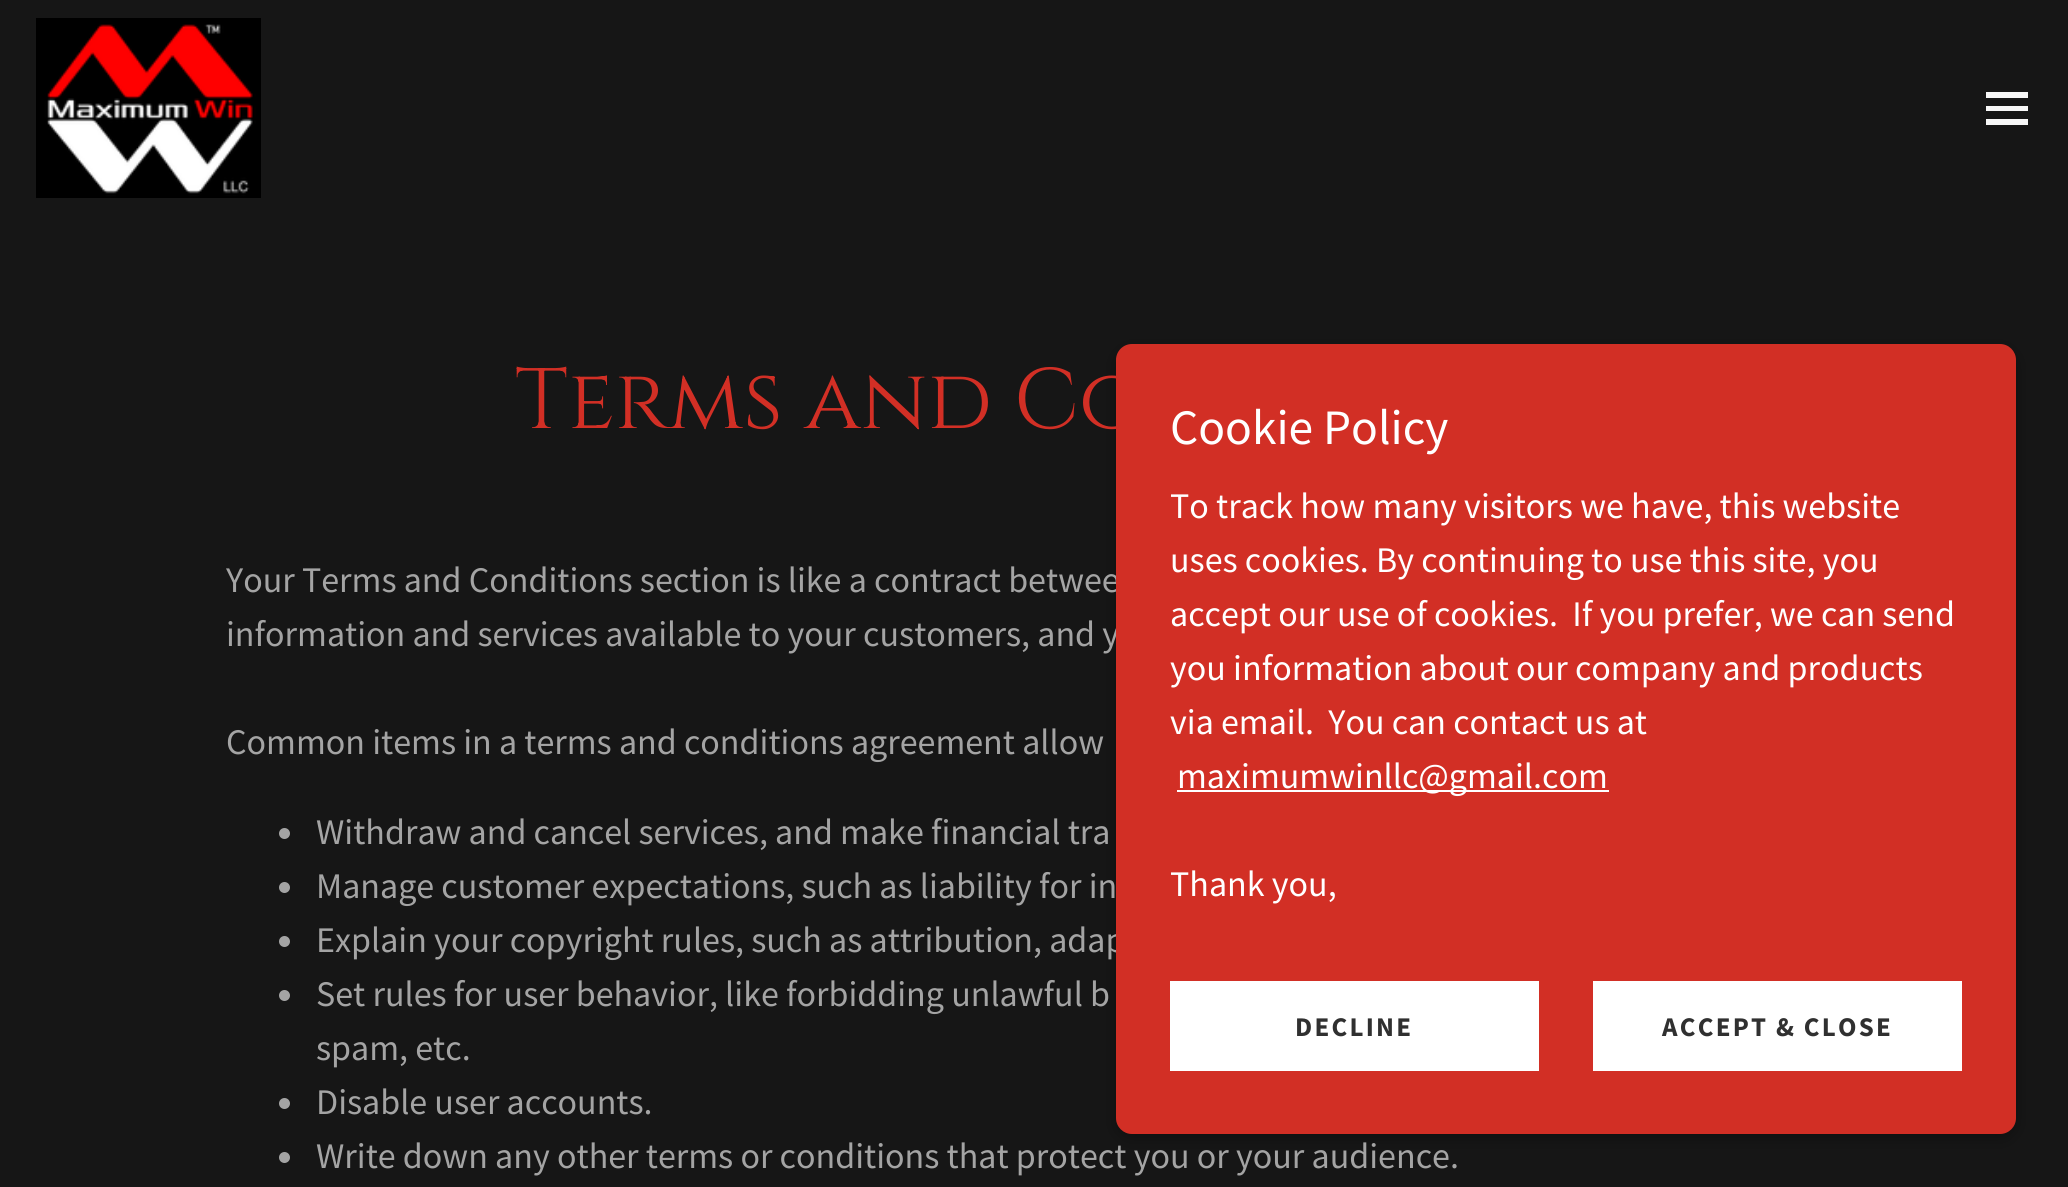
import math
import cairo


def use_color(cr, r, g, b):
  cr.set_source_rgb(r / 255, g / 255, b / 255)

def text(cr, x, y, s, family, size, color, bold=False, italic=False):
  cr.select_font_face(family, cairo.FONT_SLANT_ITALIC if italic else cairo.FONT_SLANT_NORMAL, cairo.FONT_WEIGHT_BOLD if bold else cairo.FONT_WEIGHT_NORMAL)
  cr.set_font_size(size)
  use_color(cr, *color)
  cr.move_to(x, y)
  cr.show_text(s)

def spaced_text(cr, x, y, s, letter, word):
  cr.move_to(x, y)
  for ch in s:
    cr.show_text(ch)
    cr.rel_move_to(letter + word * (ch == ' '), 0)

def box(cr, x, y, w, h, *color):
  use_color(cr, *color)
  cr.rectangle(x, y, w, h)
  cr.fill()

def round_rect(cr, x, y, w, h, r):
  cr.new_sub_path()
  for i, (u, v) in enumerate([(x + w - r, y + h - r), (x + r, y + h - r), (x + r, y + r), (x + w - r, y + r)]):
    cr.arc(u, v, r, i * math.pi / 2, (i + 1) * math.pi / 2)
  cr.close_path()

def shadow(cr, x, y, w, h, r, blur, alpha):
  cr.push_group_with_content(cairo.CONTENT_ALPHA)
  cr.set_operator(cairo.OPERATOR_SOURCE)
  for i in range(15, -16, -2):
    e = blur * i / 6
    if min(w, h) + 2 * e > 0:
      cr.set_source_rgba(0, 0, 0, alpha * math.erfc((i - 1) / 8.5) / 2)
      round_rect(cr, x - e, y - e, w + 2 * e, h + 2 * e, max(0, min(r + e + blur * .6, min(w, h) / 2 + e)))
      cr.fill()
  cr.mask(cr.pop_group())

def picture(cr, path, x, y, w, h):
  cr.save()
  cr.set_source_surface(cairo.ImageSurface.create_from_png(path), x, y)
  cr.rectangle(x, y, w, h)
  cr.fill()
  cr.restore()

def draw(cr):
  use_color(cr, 22, 22, 22)
  cr.paint()
  picture(cr, "img_01.png", 36, 18, 225, 180)
  box(cr, 1986, 92, 42, 6, 247, 247, 247)
  box(cr, 1986, 106, 42, 5, 247, 247, 247)
  box(cr, 1986, 119, 42, 6, 247, 247, 247)
  use_color(cr, 164, 164, 164)
  cr.arc(284.5, 833.5, 5.5, 0, 2 * math.pi)
  cr.fill()
  cr.arc(284.5, 887.5, 5.5, 0, 2 * math.pi)
  cr.fill()
  cr.arc(284.5, 941.5, 5.5, 0, 2 * math.pi)
  cr.fill()
  cr.arc(284.5, 995.5, 5.5, 0, 2 * math.pi)
  cr.fill()
  cr.arc(284.5, 1103.5, 5.5, 0, 2 * math.pi)
  cr.fill()
  cr.arc(284.5, 1157.5, 5.5, 0, 2 * math.pi)
  cr.fill()
  use_color(cr, 0, 0, 0)
  shadow(cr, 1116, 349, 900, 790, 16, 7, 0.3)
  text(cr, 515, 428, "Terms and Co", "Cinzel", 85.5, (210, 47, 37))
  text(cr, 226, 592, "Your Terms and Conditions section is like a contract betwee", "Source Sans Pro", 36, (164, 164, 164))
  text(cr, 226, 646, "information and services available to your customers, and y", "Source Sans Pro", 36, (164, 164, 164))
  text(cr, 226, 754, "Common items in a terms and conditions agreement allow", "Source Sans Pro", 36, (164, 164, 164))
  text(cr, 316, 844, "Withdraw and cancel services, and make financial tra", "Source Sans Pro", 36, (164, 164, 164))
  text(cr, 316, 898, "Manage customer expectations, such as liability for in", "Source Sans Pro", 36, (164, 164, 164))
  text(cr, 316, 952, "Explain your copyright rules, such as attribution, adap", "Source Sans Pro", 36, (164, 164, 164))
  text(cr, 316, 1006, "Set rules for user behavior, like forbidding unlawful b", "Source Sans Pro", 36, (164, 164, 164))
  text(cr, 316, 1060, "spam, etc.", "Source Sans Pro", 36, (164, 164, 164))
  text(cr, 316, 1114, "Disable user accounts.", "Source Sans Pro", 36, (164, 164, 164))
  text(cr, 316, 1168, "Write down any other terms or conditions that protect you or your audience.", "Source Sans Pro", 36, (164, 164, 164))
  use_color(cr, 210, 47, 37)
  round_rect(cr, 1116, 344, 900, 790, 16)
  cr.fill()
  text(cr, 1170, 444, "Cookie Policy", "Source Sans Pro", 49.5, (255, 255, 255))
  text(cr, 1170, 518, "To track how many visitors we have, this website", "Source Sans Pro", 36, (255, 255, 255))
  text(cr, 1170, 572, "uses cookies. By continuing to use this site, you", "Source Sans Pro", 36, (255, 255, 255))
  text(cr, 1170, 626, "accept our use of cookies.  If you prefer, we can send", "Source Sans Pro", 36, (255, 255, 255))
  text(cr, 1170, 680, "you information about our company and products", "Source Sans Pro", 36, (255, 255, 255))
  text(cr, 1170, 734, "via email.  You can contact us at", "Source Sans Pro", 36, (255, 255, 255))
  box(cr, 1177, 790, 432, 2, 255, 255, 255)
  text(cr, 1177, 788, "maximumwinllc@gmail.com", "Source Sans Pro", 36, (255, 255, 255))
  text(cr, 1170, 896, "Thank you,", "Source Sans Pro", 36, (255, 255, 255))
  box(cr, 1170, 981, 369, 90, 255, 255, 255)
  cr.select_font_face("Source Sans Pro", cairo.FONT_SLANT_NORMAL, cairo.FONT_WEIGHT_BOLD)
  cr.set_font_size(27)
  use_color(cr, 48, 48, 48)
  spaced_text(cr, 1295, 1036, "DECLINE", 2.25, 0)
  box(cr, 1593, 981, 369, 90, 255, 255, 255)
  use_color(cr, 48, 48, 48)
  spaced_text(cr, 1662, 1036, "ACCEPT & CLOSE", 2.25, 0)


surface = cairo.ImageSurface(cairo.FORMAT_RGB24, 2068, 1187)
cr = cairo.Context(surface)
options = cairo.FontOptions()
options.set_hint_metrics(cairo.HINT_METRICS_OFF)
options.set_hint_style(cairo.HINT_STYLE_NONE)
cr.set_font_options(options)
cr.set_miter_limit(4)
draw(cr)
surface.write_to_png("out.png")
